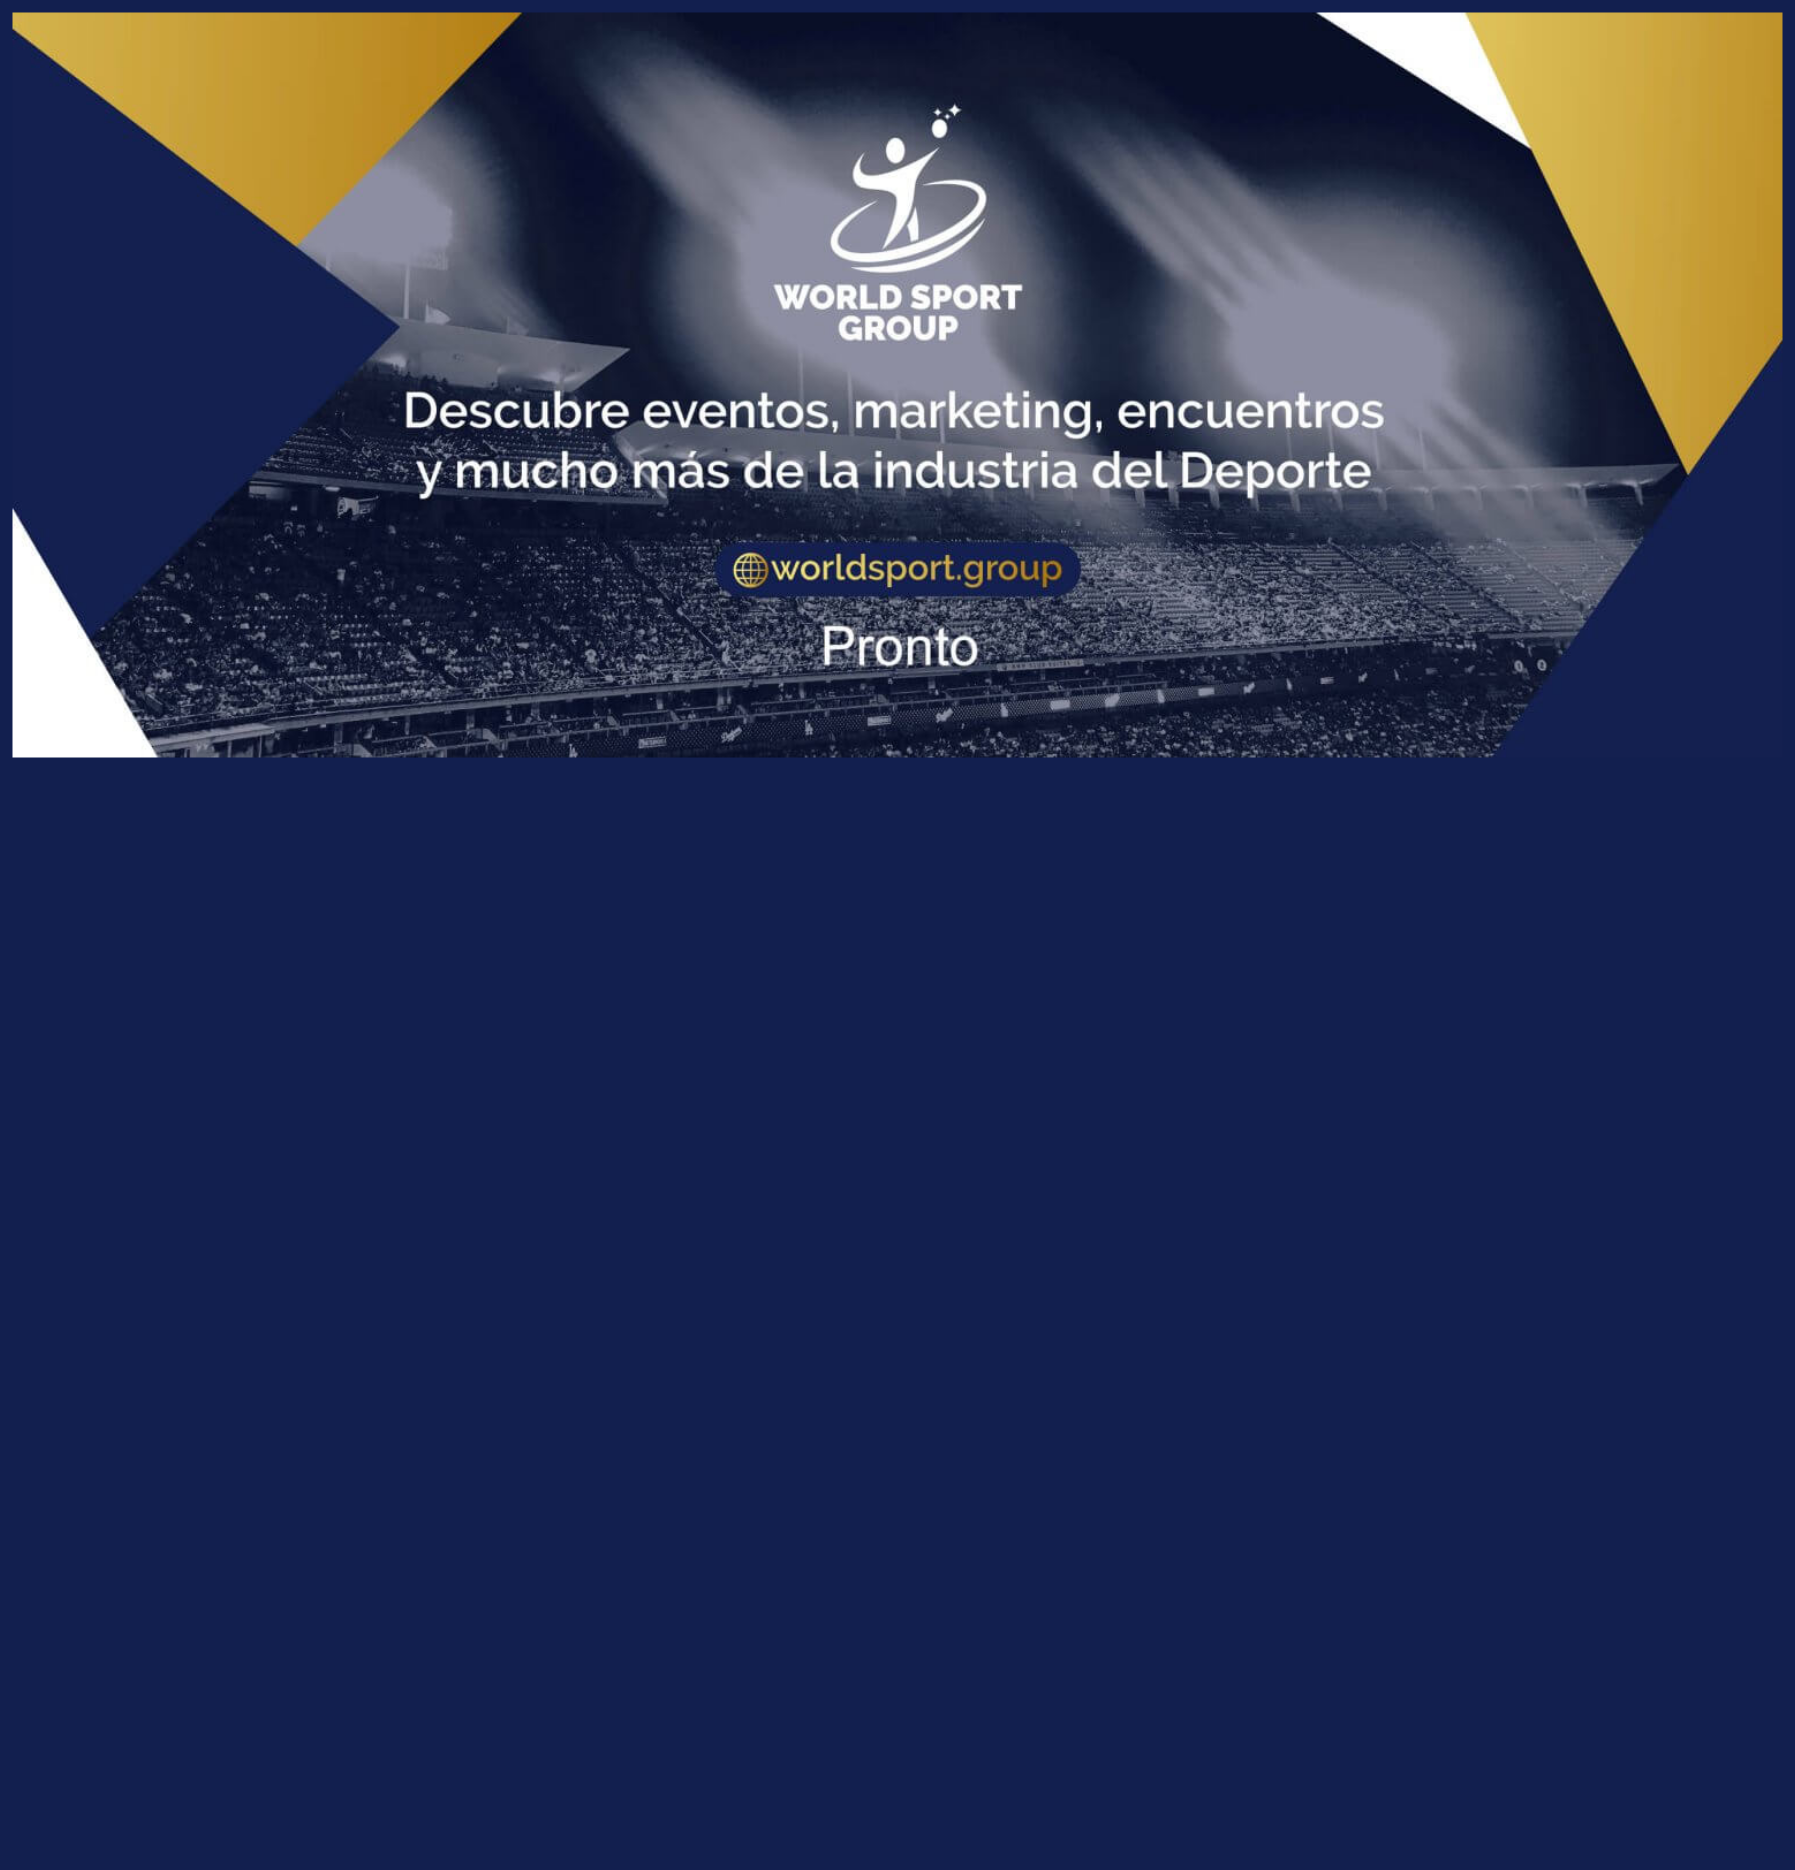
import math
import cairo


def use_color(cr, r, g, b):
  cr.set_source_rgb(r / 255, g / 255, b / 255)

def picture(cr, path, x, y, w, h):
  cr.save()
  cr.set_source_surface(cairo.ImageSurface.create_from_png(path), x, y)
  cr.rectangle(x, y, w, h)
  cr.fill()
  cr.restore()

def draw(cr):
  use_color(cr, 18, 31, 79)
  cr.paint()
  picture(cr, "img_01.png", 12, 12, 1771, 746)


surface = cairo.ImageSurface(cairo.FORMAT_RGB24, 1795, 1870)
cr = cairo.Context(surface)
options = cairo.FontOptions()
options.set_hint_metrics(cairo.HINT_METRICS_OFF)
options.set_hint_style(cairo.HINT_STYLE_NONE)
cr.set_font_options(options)
cr.set_miter_limit(4)
draw(cr)
surface.write_to_png("out.png")
